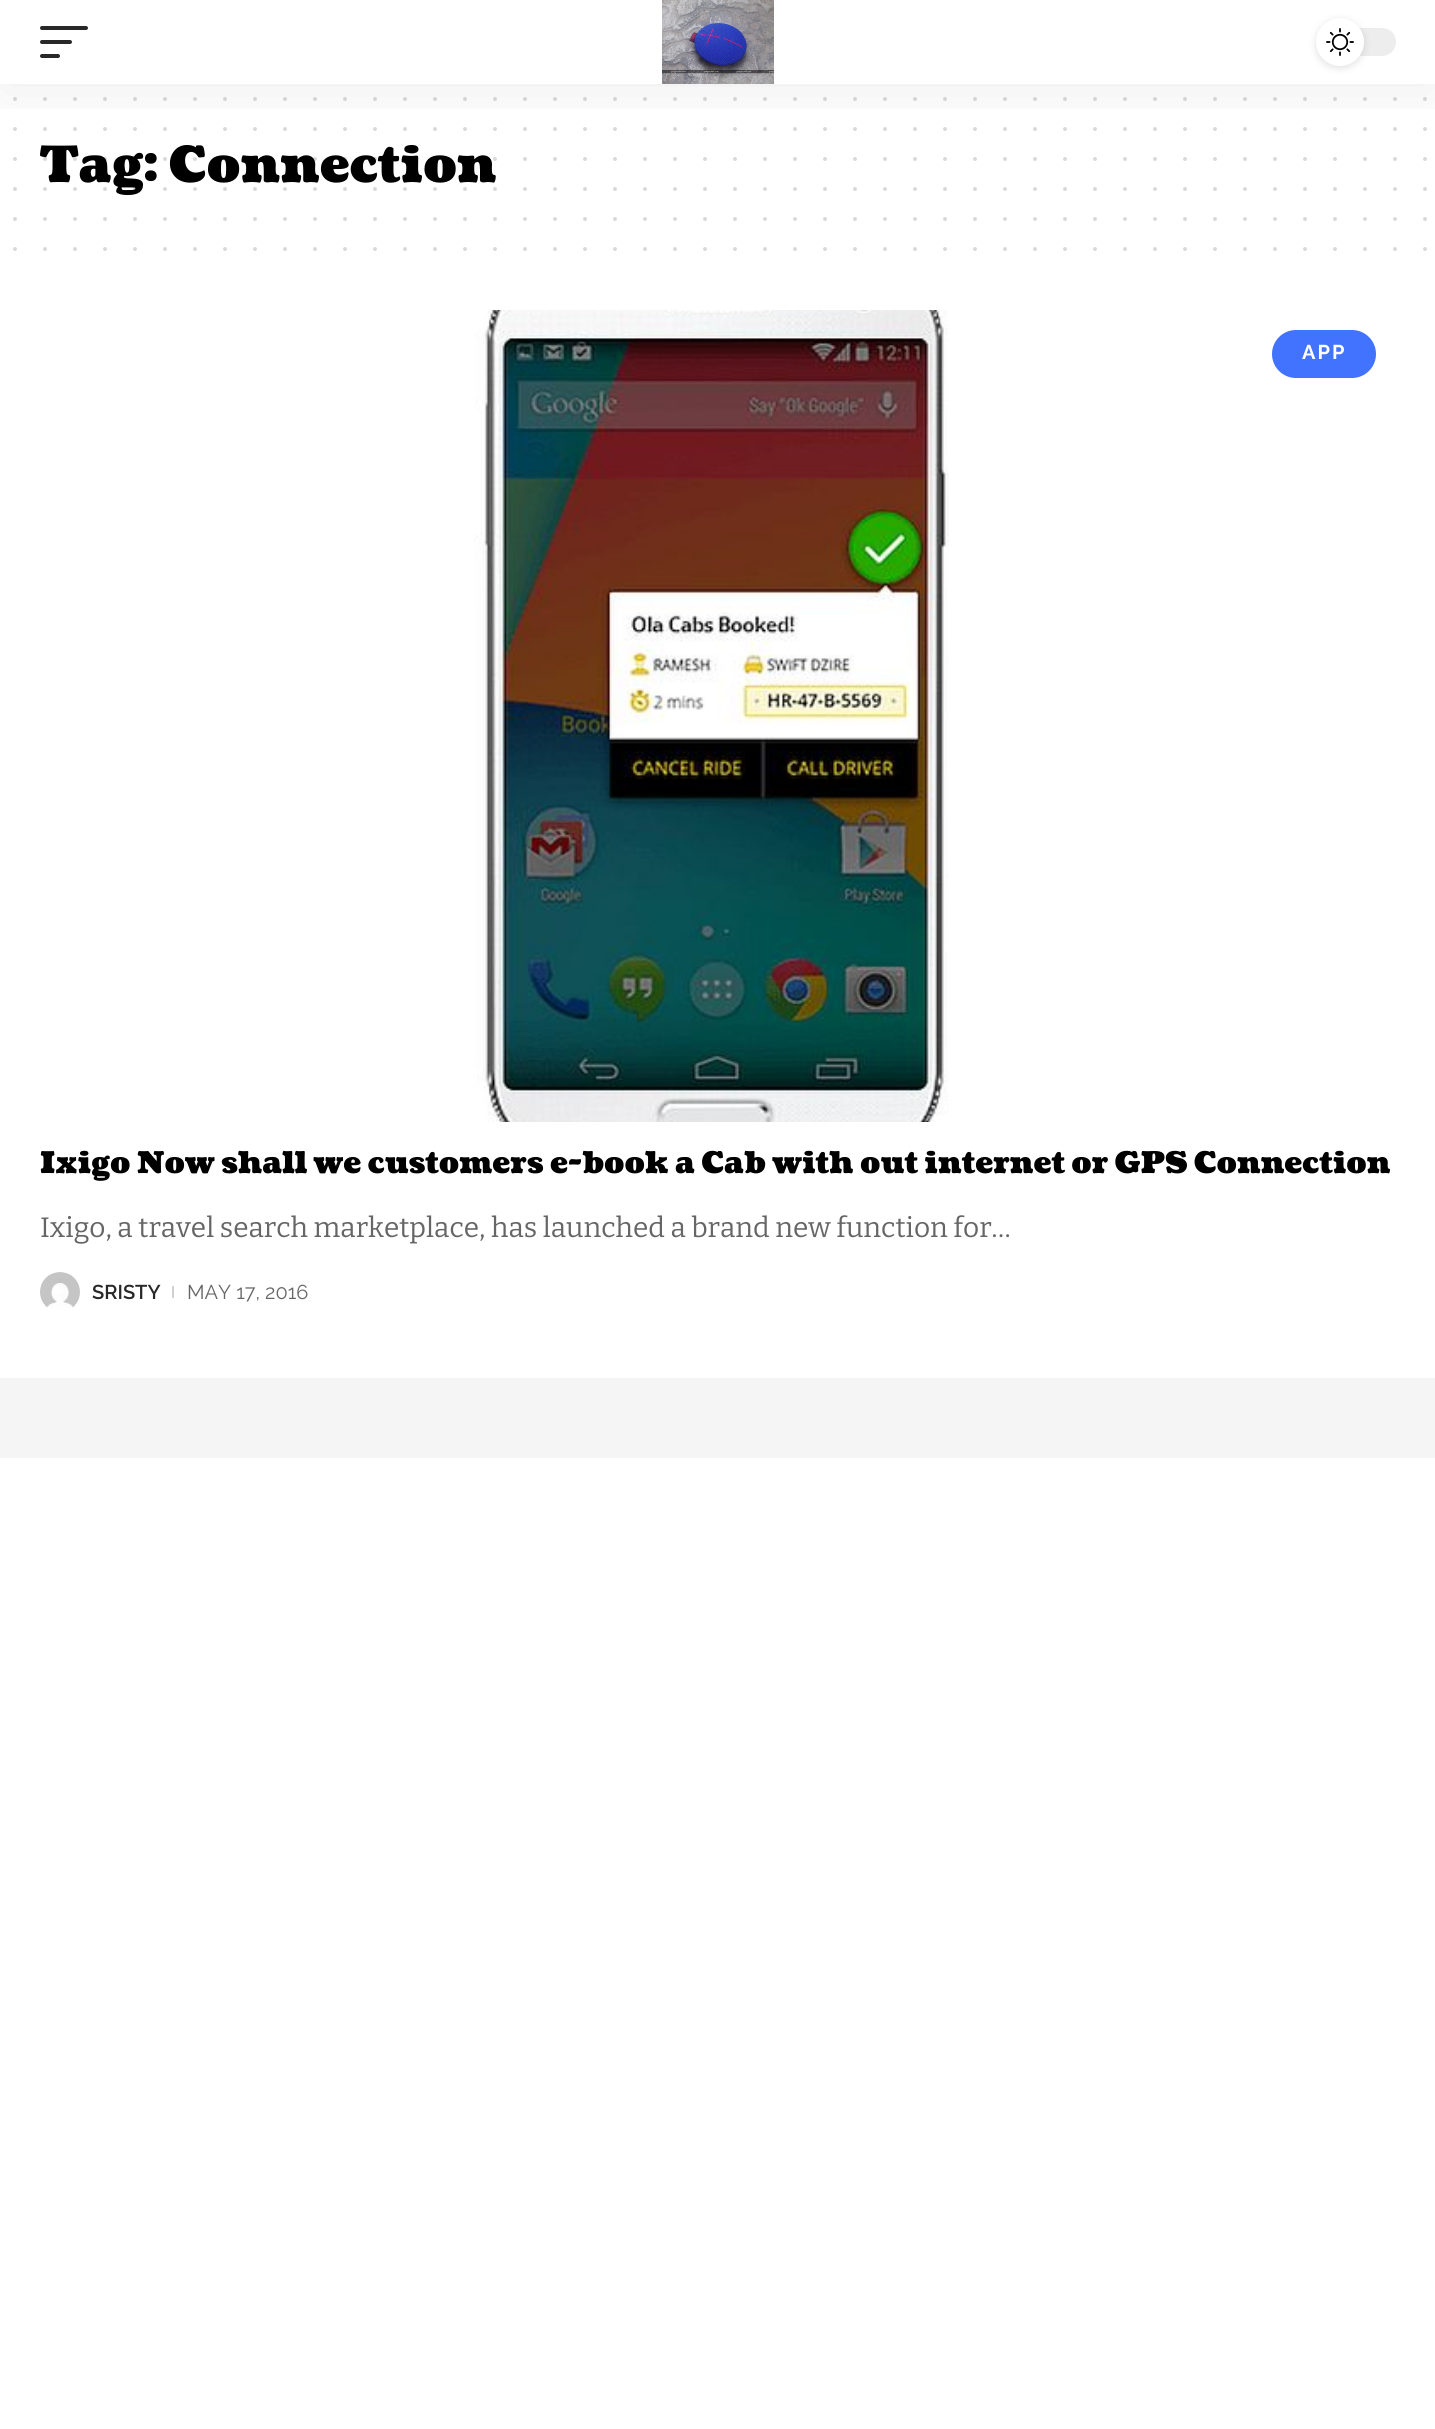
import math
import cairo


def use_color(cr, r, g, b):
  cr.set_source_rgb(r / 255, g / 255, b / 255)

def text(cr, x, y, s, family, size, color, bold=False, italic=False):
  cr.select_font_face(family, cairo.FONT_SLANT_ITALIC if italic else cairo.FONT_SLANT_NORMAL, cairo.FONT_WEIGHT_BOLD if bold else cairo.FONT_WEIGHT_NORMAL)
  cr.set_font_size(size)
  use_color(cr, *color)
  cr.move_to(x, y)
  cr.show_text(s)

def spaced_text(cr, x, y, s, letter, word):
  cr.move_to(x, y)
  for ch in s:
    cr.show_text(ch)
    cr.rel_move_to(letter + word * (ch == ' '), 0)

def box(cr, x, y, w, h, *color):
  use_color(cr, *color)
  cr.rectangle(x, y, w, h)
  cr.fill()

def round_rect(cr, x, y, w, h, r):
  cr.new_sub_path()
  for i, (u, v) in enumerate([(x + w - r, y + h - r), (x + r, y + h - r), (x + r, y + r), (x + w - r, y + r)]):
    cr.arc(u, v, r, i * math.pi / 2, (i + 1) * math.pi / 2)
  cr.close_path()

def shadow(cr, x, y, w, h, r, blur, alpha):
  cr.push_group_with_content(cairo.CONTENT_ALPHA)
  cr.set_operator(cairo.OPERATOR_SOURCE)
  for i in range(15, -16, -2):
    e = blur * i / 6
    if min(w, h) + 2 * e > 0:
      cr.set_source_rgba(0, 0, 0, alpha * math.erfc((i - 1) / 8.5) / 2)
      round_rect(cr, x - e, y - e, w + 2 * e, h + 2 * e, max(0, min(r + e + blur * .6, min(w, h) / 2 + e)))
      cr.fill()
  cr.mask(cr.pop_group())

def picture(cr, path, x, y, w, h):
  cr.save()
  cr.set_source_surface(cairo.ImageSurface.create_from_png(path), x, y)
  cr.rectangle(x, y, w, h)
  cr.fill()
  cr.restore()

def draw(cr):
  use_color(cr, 255, 255, 255)
  cr.paint()
  cr.new_path()
  cr.move_to(15, 99)
  cr.line_to(1425.4, 99)
  use_color(cr, 217, 217, 217)
  cr.set_line_width(4)
  cr.set_line_cap(cairo.LINE_CAP_ROUND)
  cr.set_dash([0, 30])
  cr.stroke()
  cr.new_path()
  cr.move_to(15, 129)
  cr.line_to(1425.4, 129)
  cr.stroke()
  cr.new_path()
  cr.move_to(15, 219)
  cr.line_to(1425.4, 219)
  cr.stroke()
  cr.new_path()
  cr.move_to(15, 249)
  cr.line_to(1425.4, 249)
  cr.stroke()
  picture(cr, "img_03.png", 474, 310, 475, 812)
  use_color(cr, 65, 115, 255)
  round_rect(cr, 1272, 330, 104, 48, 24)
  cr.fill()
  picture(cr, "img_04.png", 40, 1272, 40, 36)
  box(cr, 172, 1286, 2, 12, 209, 209, 209)
  box(cr, 0, 1378, 1435, 80, 245, 245, 245)
  text(cr, 40, 182, "Tag: Connection", "Coustard Black", 50, (0, 0, 0))
  cr.new_path()
  cr.move_to(15, 159)
  cr.line_to(1425.4, 159)
  cr.set_source_rgba(0, 0, 0, 0.15)
  cr.stroke()
  cr.save()
  cr.rectangle(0, 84, 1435, 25)
  cr.clip()
  use_color(cr, 0, 0, 0)
  shadow(cr, 0, 8, 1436, 84, 0, 30, 0.07)
  cr.restore()
  use_color(cr, 237, 237, 237)
  round_rect(cr, 1316, 28, 80, 28, 14)
  cr.fill()
  use_color(cr, 0, 0, 0)
  shadow(cr, 1316, 20, 48, 48, 24, 4, 0.12)
  use_color(cr, 255, 255, 255)
  cr.arc(1340, 42, 24, 0, 2 * math.pi)
  cr.fill()
  picture(cr, "img_02.png", 1326, 28, 28, 28)
  use_color(cr, 40, 40, 40)
  round_rect(cr, 40, 54, 20, 4, 2)
  cr.fill()
  round_rect(cr, 40, 40, 32, 4, 2)
  cr.fill()
  round_rect(cr, 40, 26, 48, 4, 2)
  cr.fill()
  picture(cr, "img_01.png", 662, 0, 112, 84)
  cr.new_path()
  cr.move_to(15, 189)
  cr.line_to(1425.4, 189)
  cr.set_source_rgba(0, 0, 0, 0.15)
  cr.stroke()
  cr.select_font_face("Raleway", cairo.FONT_SLANT_NORMAL, cairo.FONT_WEIGHT_BOLD)
  cr.set_font_size(20)
  use_color(cr, 255, 255, 255)
  spaced_text(cr, 1302, 359, "APP", 2, 0)
  text(cr, 40, 1173, "Ixigo Now shall we customers e-book a Cab with out internet or GPS Connection", "Coustard Black", 30, (0, 0, 0))
  text(cr, 40, 1237, "Ixigo, a travel search marketplace, has launched a brand new function for…", "Bitter", 28, (102, 102, 102))
  text(cr, 92, 1299, "SRISTY", "Raleway SemiBold", 20, (40, 40, 40))
  text(cr, 187, 1299, "MAY 17, 2016", "Raleway", 20, (102, 102, 102))


surface = cairo.ImageSurface(cairo.FORMAT_RGB24, 1435, 2429)
cr = cairo.Context(surface)
options = cairo.FontOptions()
options.set_hint_metrics(cairo.HINT_METRICS_OFF)
options.set_hint_style(cairo.HINT_STYLE_NONE)
cr.set_font_options(options)
cr.set_miter_limit(4)
draw(cr)
surface.write_to_png("out.png")
